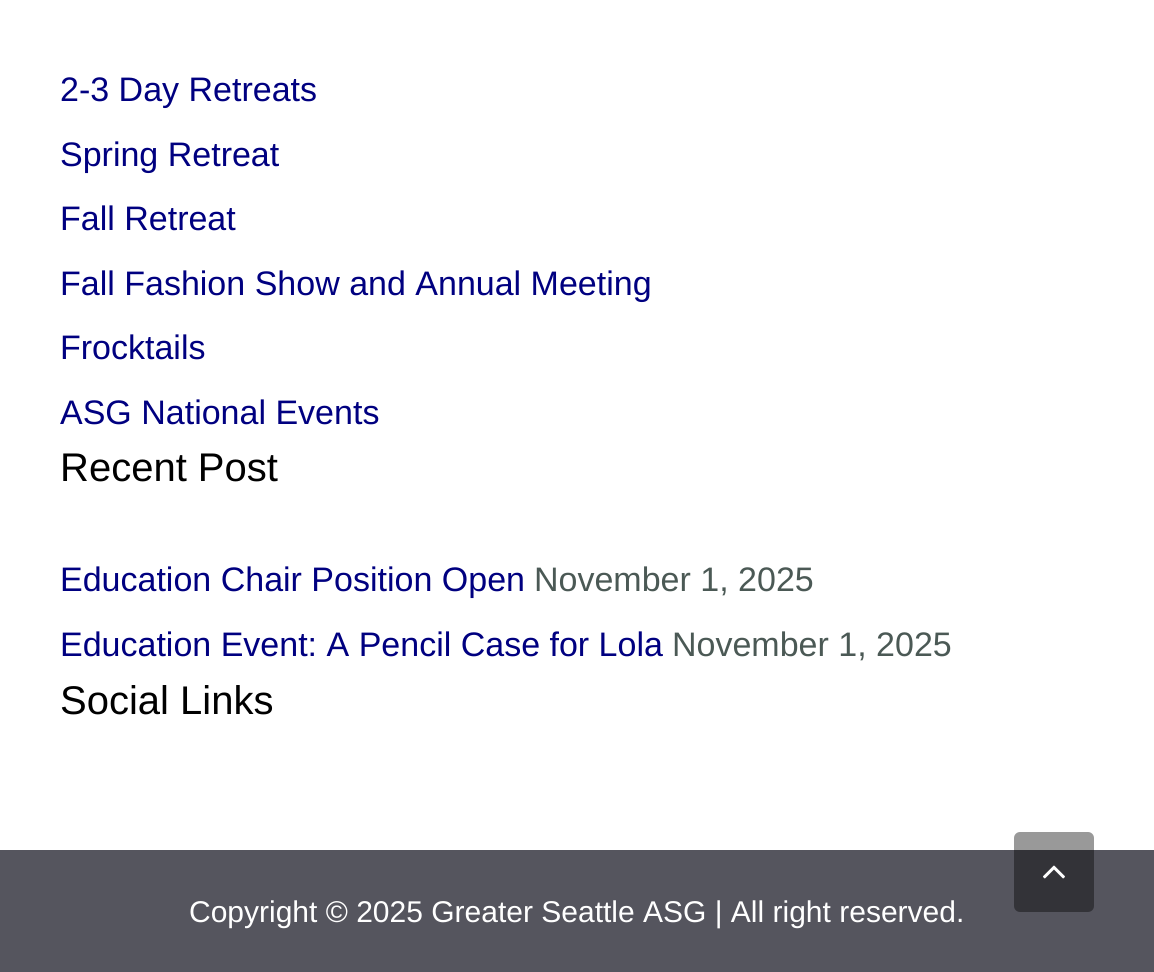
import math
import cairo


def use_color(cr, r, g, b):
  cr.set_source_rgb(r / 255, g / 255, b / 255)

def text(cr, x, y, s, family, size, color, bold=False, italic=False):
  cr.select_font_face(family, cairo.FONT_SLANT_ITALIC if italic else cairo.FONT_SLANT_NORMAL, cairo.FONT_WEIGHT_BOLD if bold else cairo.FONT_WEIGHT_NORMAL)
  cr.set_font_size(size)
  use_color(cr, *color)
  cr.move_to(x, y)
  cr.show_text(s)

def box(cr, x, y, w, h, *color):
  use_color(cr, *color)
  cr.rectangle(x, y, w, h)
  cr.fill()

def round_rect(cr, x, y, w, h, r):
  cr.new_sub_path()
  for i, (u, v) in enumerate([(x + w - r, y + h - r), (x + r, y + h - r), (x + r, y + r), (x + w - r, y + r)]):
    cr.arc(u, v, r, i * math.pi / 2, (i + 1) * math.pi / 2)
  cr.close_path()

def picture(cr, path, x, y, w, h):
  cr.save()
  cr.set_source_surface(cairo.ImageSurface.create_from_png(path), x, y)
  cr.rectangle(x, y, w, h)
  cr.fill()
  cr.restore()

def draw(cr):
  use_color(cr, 255, 255, 255)
  cr.paint()
  box(cr, 0, 850, 1154, 122, 85, 85, 94)
  cr.set_source_rgba(0, 0, 0, 0.4)
  round_rect(cr, 1014, 832, 80, 80, 6)
  cr.fill()
  picture(cr, "img_01.png", 1043, 865, 22, 14)
  text(cr, 60, 101, "2-3 Day Retreats", "Liberation Sans", 34, (0, 0, 128))
  text(cr, 60, 166, "Spring Retreat", "Liberation Sans", 34, (0, 0, 128))
  text(cr, 60, 230, "Fall Retreat", "Liberation Sans", 34, (0, 0, 128))
  text(cr, 60, 295, "Fall Fashion Show and Annual Meeting", "Liberation Sans", 34, (0, 0, 128))
  text(cr, 60, 359, "Frocktails", "Liberation Sans", 34, (0, 0, 128))
  text(cr, 60, 424, "ASG National Events", "Liberation Sans", 34, (0, 0, 128))
  text(cr, 60, 481, "Recent Post", "Liberation Sans", 40, (0, 0, 0))
  text(cr, 60, 591, "Education Chair Position Open", "Liberation Sans", 34, (0, 0, 128))
  text(cr, 534, 591, "November 1, 2025", "Liberation Sans", 34, (75, 89, 85))
  text(cr, 60, 656, "Education Event: A Pencil Case for Lola", "Liberation Sans", 34, (0, 0, 128))
  text(cr, 672, 656, "November 1, 2025", "Liberation Sans", 34, (75, 89, 85))
  text(cr, 60, 714, "Social Links", "Liberation Sans", 40, (0, 0, 0))
  text(cr, 189, 922, "Copyright © 2025 Greater Seattle ASG | All right reserved.", "Liberation Sans", 30, (255, 255, 255))


surface = cairo.ImageSurface(cairo.FORMAT_RGB24, 1154, 972)
cr = cairo.Context(surface)
options = cairo.FontOptions()
options.set_hint_metrics(cairo.HINT_METRICS_OFF)
options.set_hint_style(cairo.HINT_STYLE_NONE)
cr.set_font_options(options)
cr.set_miter_limit(4)
draw(cr)
surface.write_to_png("out.png")
